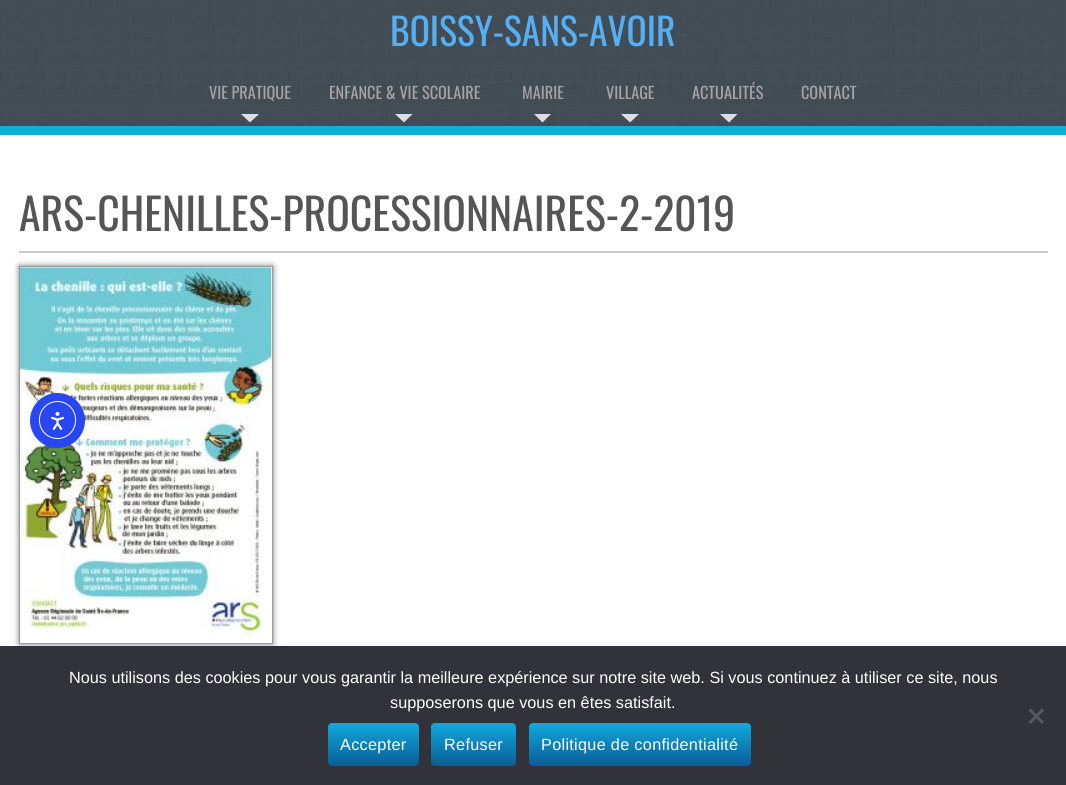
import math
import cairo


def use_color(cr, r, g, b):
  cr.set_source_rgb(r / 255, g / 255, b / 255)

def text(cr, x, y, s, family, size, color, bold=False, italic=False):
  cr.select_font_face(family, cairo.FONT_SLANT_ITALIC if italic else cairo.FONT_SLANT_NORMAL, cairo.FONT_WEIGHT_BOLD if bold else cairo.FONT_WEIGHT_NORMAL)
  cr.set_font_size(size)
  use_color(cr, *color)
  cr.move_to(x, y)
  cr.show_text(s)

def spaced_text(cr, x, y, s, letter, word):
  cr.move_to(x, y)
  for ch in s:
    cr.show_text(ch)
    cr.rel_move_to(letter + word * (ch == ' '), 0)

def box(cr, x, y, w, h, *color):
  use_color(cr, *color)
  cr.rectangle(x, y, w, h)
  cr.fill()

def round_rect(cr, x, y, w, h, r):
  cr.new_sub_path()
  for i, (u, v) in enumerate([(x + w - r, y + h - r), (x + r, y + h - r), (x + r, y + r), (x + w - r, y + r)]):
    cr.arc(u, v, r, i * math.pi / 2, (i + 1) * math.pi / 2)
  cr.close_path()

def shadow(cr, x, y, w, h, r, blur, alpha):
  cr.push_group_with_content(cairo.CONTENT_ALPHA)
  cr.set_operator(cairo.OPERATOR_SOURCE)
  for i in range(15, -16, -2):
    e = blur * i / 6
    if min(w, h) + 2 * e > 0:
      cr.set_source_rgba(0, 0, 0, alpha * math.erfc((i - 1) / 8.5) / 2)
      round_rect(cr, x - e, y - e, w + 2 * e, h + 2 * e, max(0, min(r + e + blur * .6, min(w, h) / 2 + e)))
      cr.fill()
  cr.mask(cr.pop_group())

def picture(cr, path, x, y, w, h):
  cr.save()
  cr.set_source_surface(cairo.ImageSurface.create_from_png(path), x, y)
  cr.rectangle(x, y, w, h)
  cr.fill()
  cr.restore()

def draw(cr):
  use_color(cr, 255, 255, 255)
  cr.paint()
  picture(cr, "img_01.png", 0, 0, 1066, 126)
  box(cr, 0, 126, 1066, 9, 13, 176, 216)
  cr.set_source_rgba(0.933, 0.933, 0.933, 0.9)
  cr.new_path()
  cr.move_to(241, 114)
  cr.line_to(259, 114)
  cr.line_to(250, 122.5)
  cr.close_path()
  cr.fill()
  cr.new_path()
  cr.move_to(395, 114)
  cr.line_to(412.5, 114)
  cr.line_to(404, 122.5)
  cr.close_path()
  cr.fill()
  cr.new_path()
  cr.move_to(534, 114)
  cr.line_to(551, 114)
  cr.line_to(542.5, 122.5)
  cr.close_path()
  cr.fill()
  cr.new_path()
  cr.move_to(621, 114)
  cr.line_to(639, 114)
  cr.line_to(630, 122.5)
  cr.close_path()
  cr.fill()
  cr.new_path()
  cr.move_to(720, 114)
  cr.line_to(737.5, 114)
  cr.line_to(729, 122.5)
  cr.close_path()
  cr.fill()
  box(cr, 19, 251, 1029, 2, 204, 204, 204)
  cr.save()
  cr.set_fill_rule(cairo.FILL_RULE_EVEN_ODD)
  cr.new_path()
  cr.move_to(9, 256)
  cr.line_to(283, 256)
  cr.line_to(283, 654)
  cr.line_to(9, 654)
  cr.close_path()
  cr.move_to(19, 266)
  cr.line_to(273, 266)
  cr.line_to(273, 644)
  cr.line_to(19, 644)
  cr.close_path()
  cr.clip()
  use_color(cr, 119, 119, 119)
  shadow(cr, 19, 266, 254, 378, 0, 3, 1)
  cr.restore()
  cr.rectangle(19.5, 266.5, 253, 377)
  use_color(cr, 153, 153, 153)
  cr.set_line_width(1)
  cr.stroke()
  picture(cr, "img_02.png", 20, 267, 252, 372)
  use_color(cr, 40, 71, 243)
  cr.arc(57.5, 420.5, 27.5, 0, 2 * math.pi)
  cr.fill()
  round_rect(cr, 39.5, 401.5, 36, 37, 18)
  use_color(cr, 255, 255, 255)
  cr.stroke()
  picture(cr, "img_03.png", 51, 411, 13, 19)
  box(cr, 0, 646, 1066, 139, 50, 50, 58)
  use_color(cr, 89, 89, 93)
  cr.new_path()
  cr.move_to(1042, 708.5)
  cr.line_to(1044, 710.5)
  cr.line_to(1030.5, 724)
  cr.line_to(1028.5, 722)
  cr.close_path()
  cr.fill()
  cr.new_path()
  cr.move_to(1028.5, 710.5)
  cr.line_to(1030.5, 708.5)
  cr.line_to(1044, 722)
  cr.line_to(1042, 724)
  cr.close_path()
  cr.fill()
  gradient = cairo.LinearGradient(328, 723, 328, 766)
  gradient.add_color_stop_rgba(0.05, 0.067, 0.647, 0.859, 1)
  gradient.add_color_stop_rgba(1, 0.031, 0.365, 0.588, 1)
  cr.set_source(gradient)
  round_rect(cr, 328, 723, 91, 43, 4)
  cr.fill()
  gradient = cairo.LinearGradient(431, 723, 431, 766)
  gradient.add_color_stop_rgba(0.05, 0.067, 0.647, 0.859, 1)
  gradient.add_color_stop_rgba(1, 0.031, 0.365, 0.588, 1)
  cr.set_source(gradient)
  round_rect(cr, 431, 723, 85, 43, 4)
  cr.fill()
  gradient = cairo.LinearGradient(529, 723, 529, 766)
  gradient.add_color_stop_rgba(0.05, 0.067, 0.647, 0.859, 1)
  gradient.add_color_stop_rgba(1, 0.031, 0.365, 0.588, 1)
  cr.set_source(gradient)
  round_rect(cr, 529, 723, 222, 43, 4)
  cr.fill()
  text(cr, 390, 46, "BOISSY-SANS-AVOIR", "Oswald", 37.5, (85, 175, 244))
  text(cr, 209, 99, "VIE PRATIQUE", "Oswald", 16.25, (166, 163, 166))
  text(cr, 329, 99, "ENFANCE & VIE SCOLAIRE", "Oswald", 16.25, (166, 163, 166))
  text(cr, 522, 99, "MAIRIE", "Oswald", 16.25, (166, 163, 166))
  text(cr, 606, 99, "VILLAGE", "Oswald", 16.25, (166, 163, 166))
  text(cr, 692, 99, "ACTUALITÉS", "Oswald", 16.25, (166, 163, 166))
  text(cr, 801, 99, "CONTACT", "Oswald", 16.25, (166, 163, 166))
  text(cr, 19, 231, "ARS-CHENILLES-PROCESSIONNAIRES-2-2019", "Oswald", 43.75, (85, 85, 85))
  text(cr, 69, 683, "Nous utilisons des cookies pour vous garantir la meilleure expérience sur notre site web. Si vous continuez à utiliser ce site, nous", "Liberation Sans", 16.25, (255, 255, 255))
  text(cr, 390, 708, "supposerons que vous en êtes satisfait.", "Liberation Sans", 16.25, (255, 255, 255))
  spaced_text(cr, 340, 750, "Accepter", 0.3, 0)
  spaced_text(cr, 444, 750, "Refuser", 0.3, 0)
  spaced_text(cr, 541, 750, "Politique de confidentialité", 0.3, 0)


surface = cairo.ImageSurface(cairo.FORMAT_RGB24, 1066, 785)
cr = cairo.Context(surface)
options = cairo.FontOptions()
options.set_hint_metrics(cairo.HINT_METRICS_OFF)
options.set_hint_style(cairo.HINT_STYLE_NONE)
cr.set_font_options(options)
cr.set_miter_limit(4)
draw(cr)
surface.write_to_png("out.png")
